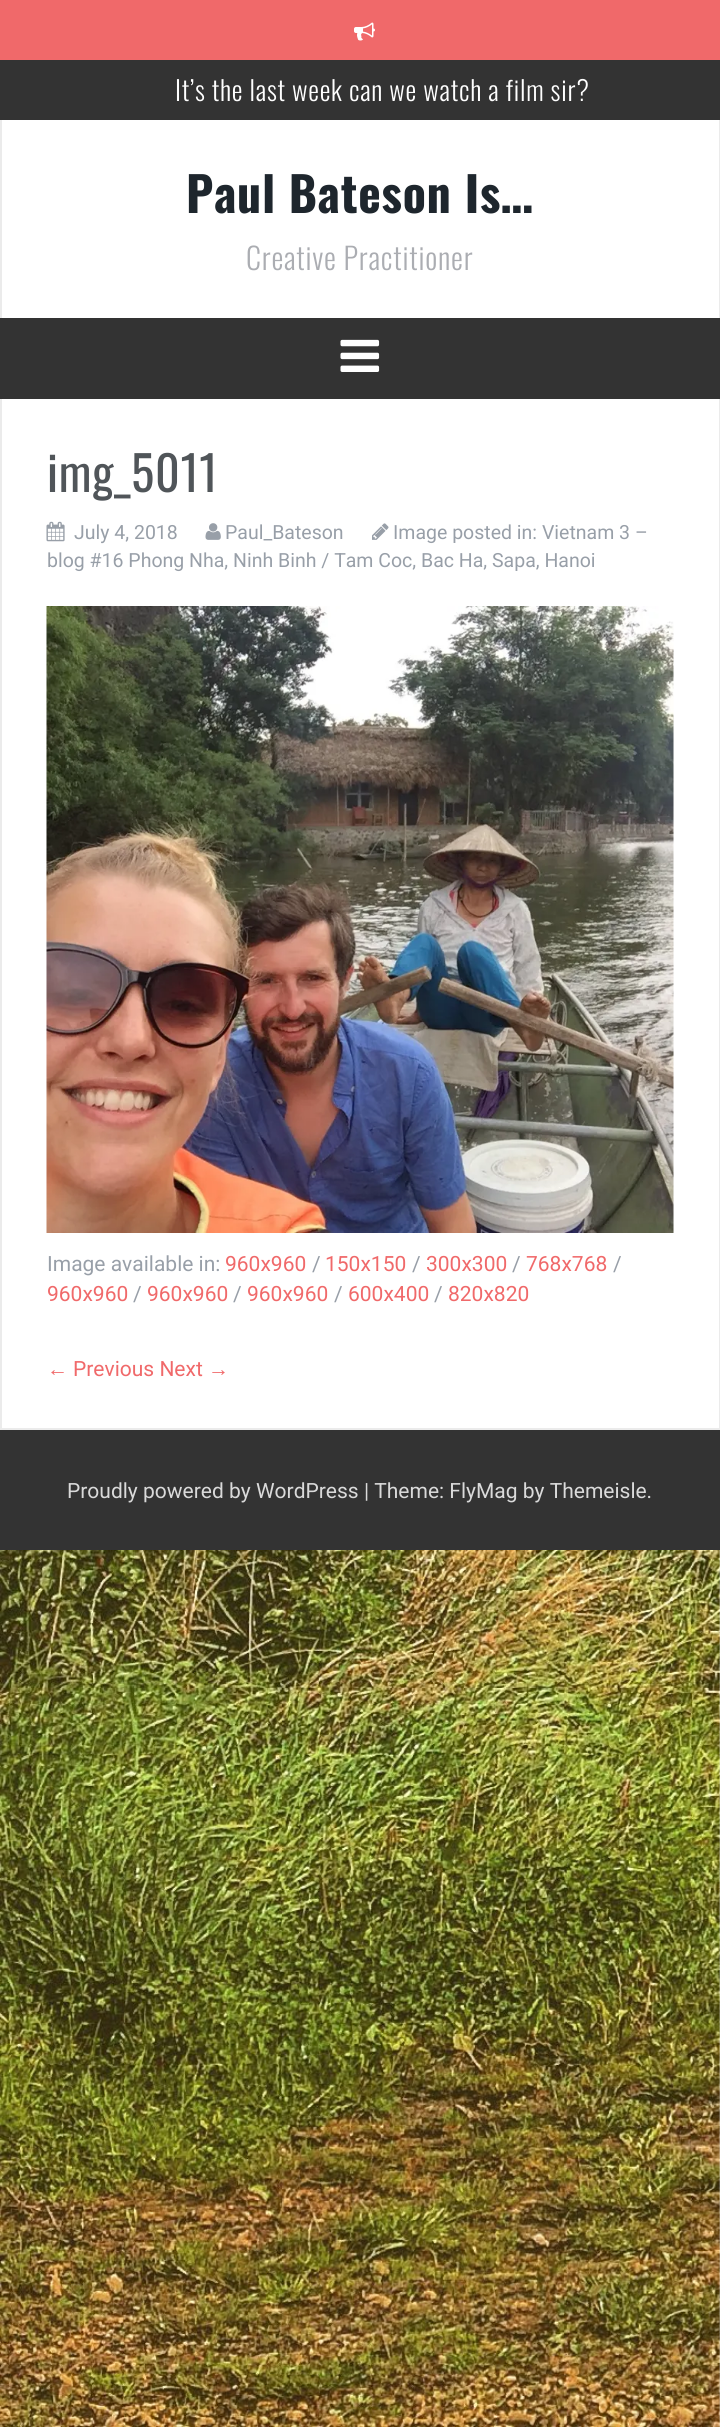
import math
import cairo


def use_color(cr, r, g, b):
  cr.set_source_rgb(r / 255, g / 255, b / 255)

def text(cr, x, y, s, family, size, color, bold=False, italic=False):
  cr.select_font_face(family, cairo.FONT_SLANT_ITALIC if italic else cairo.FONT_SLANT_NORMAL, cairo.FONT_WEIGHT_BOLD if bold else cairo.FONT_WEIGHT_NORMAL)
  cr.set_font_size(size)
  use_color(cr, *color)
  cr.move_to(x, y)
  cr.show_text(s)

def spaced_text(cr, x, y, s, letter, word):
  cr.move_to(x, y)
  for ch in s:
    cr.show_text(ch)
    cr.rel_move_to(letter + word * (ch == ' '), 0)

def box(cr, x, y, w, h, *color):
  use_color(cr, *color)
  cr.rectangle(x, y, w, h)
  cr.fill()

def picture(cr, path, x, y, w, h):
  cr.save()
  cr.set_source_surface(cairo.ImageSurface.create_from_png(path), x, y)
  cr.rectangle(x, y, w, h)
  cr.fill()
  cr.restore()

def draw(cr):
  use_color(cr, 255, 255, 255)
  cr.paint()
  picture(cr, "img_01.png", 0, 1550, 720, 877)
  box(cr, 0, 0, 720, 60, 240, 105, 106)
  picture(cr, "img_02.png", 354, 22, 21, 19)
  box(cr, 0, 60, 720, 60, 51, 51, 51)
  box(cr, 719, 120, 1, 198, 235, 235, 235)
  box(cr, 0, 120, 2, 198, 235, 235, 235)
  box(cr, 0, 318, 720, 81, 51, 51, 51)
  picture(cr, "img_03.png", 340, 339, 40, 33)
  box(cr, 719, 399, 1, 1031, 235, 235, 235)
  box(cr, 0, 1428, 720, 2, 235, 235, 235)
  box(cr, 0, 399, 2, 1031, 235, 235, 235)
  picture(cr, "img_04.png", 372, 523, 17, 17)
  picture(cr, "img_05.png", 46, 521, 19, 21)
  picture(cr, "img_06.png", 205, 523, 16, 17)
  picture(cr, "img_07.png", 46, 606, 628, 627)
  box(cr, 0, 1430, 720, 120, 51, 51, 51)
  cr.select_font_face("Oswald Light")
  cr.set_font_size(27)
  use_color(cr, 255, 255, 255)
  spaced_text(cr, 175, 101, "It’s the last week can we watch a film sir?", 0.75, 0)
  cr.select_font_face("Oswald", cairo.FONT_SLANT_NORMAL, cairo.FONT_WEIGHT_BOLD)
  cr.set_font_size(48)
  use_color(cr, 30, 38, 45)
  spaced_text(cr, 186, 213, "Paul Bateson Is…", 0.75, 0)
  cr.select_font_face("Oswald Light")
  cr.set_font_size(30)
  use_color(cr, 171, 173, 178)
  spaced_text(cr, 246, 270, "Creative Practitioner", 0.75, 0)
  cr.select_font_face("Oswald")
  cr.set_font_size(48)
  use_color(cr, 80, 85, 89)
  spaced_text(cr, 47, 492, "img_5011", 0.75, 0)
  text(cr, 393, 539, "Image posted in: Vietnam 3 –", "Roboto", 19.5, (152, 159, 168))
  text(cr, 47, 567, "blog #16 Phong Nha, Ninh Binh / Tam Coc, Bac Ha, Sapa, Hanoi", "Roboto", 19.5, (152, 159, 168))
  text(cr, 74, 539, "July 4, 2018", "Roboto", 19.5, (152, 159, 168))
  text(cr, 225, 539, "Paul_Bateson", "Roboto", 19.5, (152, 159, 168))
  text(cr, 47, 1271, "Image available in:", "Roboto", 21, (152, 159, 168))
  text(cr, 225, 1271, "960x960", "Roboto", 21, (240, 105, 106))
  text(cr, 312, 1271, "/", "Roboto", 21, (152, 159, 168))
  text(cr, 325, 1271, "150x150", "Roboto", 21, (240, 105, 106))
  text(cr, 412, 1271, "/", "Roboto", 21, (152, 159, 168))
  text(cr, 426, 1271, "300x300", "Roboto", 21, (240, 105, 106))
  text(cr, 512, 1271, "/", "Roboto", 21, (152, 159, 168))
  text(cr, 526, 1271, "768x768", "Roboto", 21, (240, 105, 106))
  text(cr, 613, 1271, "/", "Roboto", 21, (152, 159, 168))
  text(cr, 47, 1301, "960x960", "Roboto", 21, (240, 105, 106))
  text(cr, 133, 1301, "/", "Roboto", 21, (152, 159, 168))
  text(cr, 147, 1301, "960x960", "Roboto", 21, (240, 105, 106))
  text(cr, 233, 1301, "/", "Roboto", 21, (152, 159, 168))
  text(cr, 247, 1301, "960x960", "Roboto", 21, (240, 105, 106))
  text(cr, 334, 1301, "/", "Roboto", 21, (152, 159, 168))
  text(cr, 348, 1301, "600x400", "Roboto", 21, (240, 105, 106))
  text(cr, 434, 1301, "/", "Roboto", 21, (152, 159, 168))
  text(cr, 448, 1301, "820x820", "Roboto", 21, (240, 105, 106))
  text(cr, 47, 1376, "←", "Liberation Sans", 21, (240, 105, 106))
  text(cr, 73, 1376, "Previous Next", "Roboto", 21, (240, 105, 106))
  text(cr, 208, 1376, "→", "Liberation Sans", 21, (240, 105, 106))
  text(cr, 67, 1498, "Proudly powered by WordPress | Theme: FlyMag by Themeisle.", "Roboto", 21, (218, 218, 218))


surface = cairo.ImageSurface(cairo.FORMAT_RGB24, 720, 2427)
cr = cairo.Context(surface)
options = cairo.FontOptions()
options.set_hint_metrics(cairo.HINT_METRICS_OFF)
options.set_hint_style(cairo.HINT_STYLE_NONE)
cr.set_font_options(options)
cr.set_miter_limit(4)
draw(cr)
surface.write_to_png("out.png")
